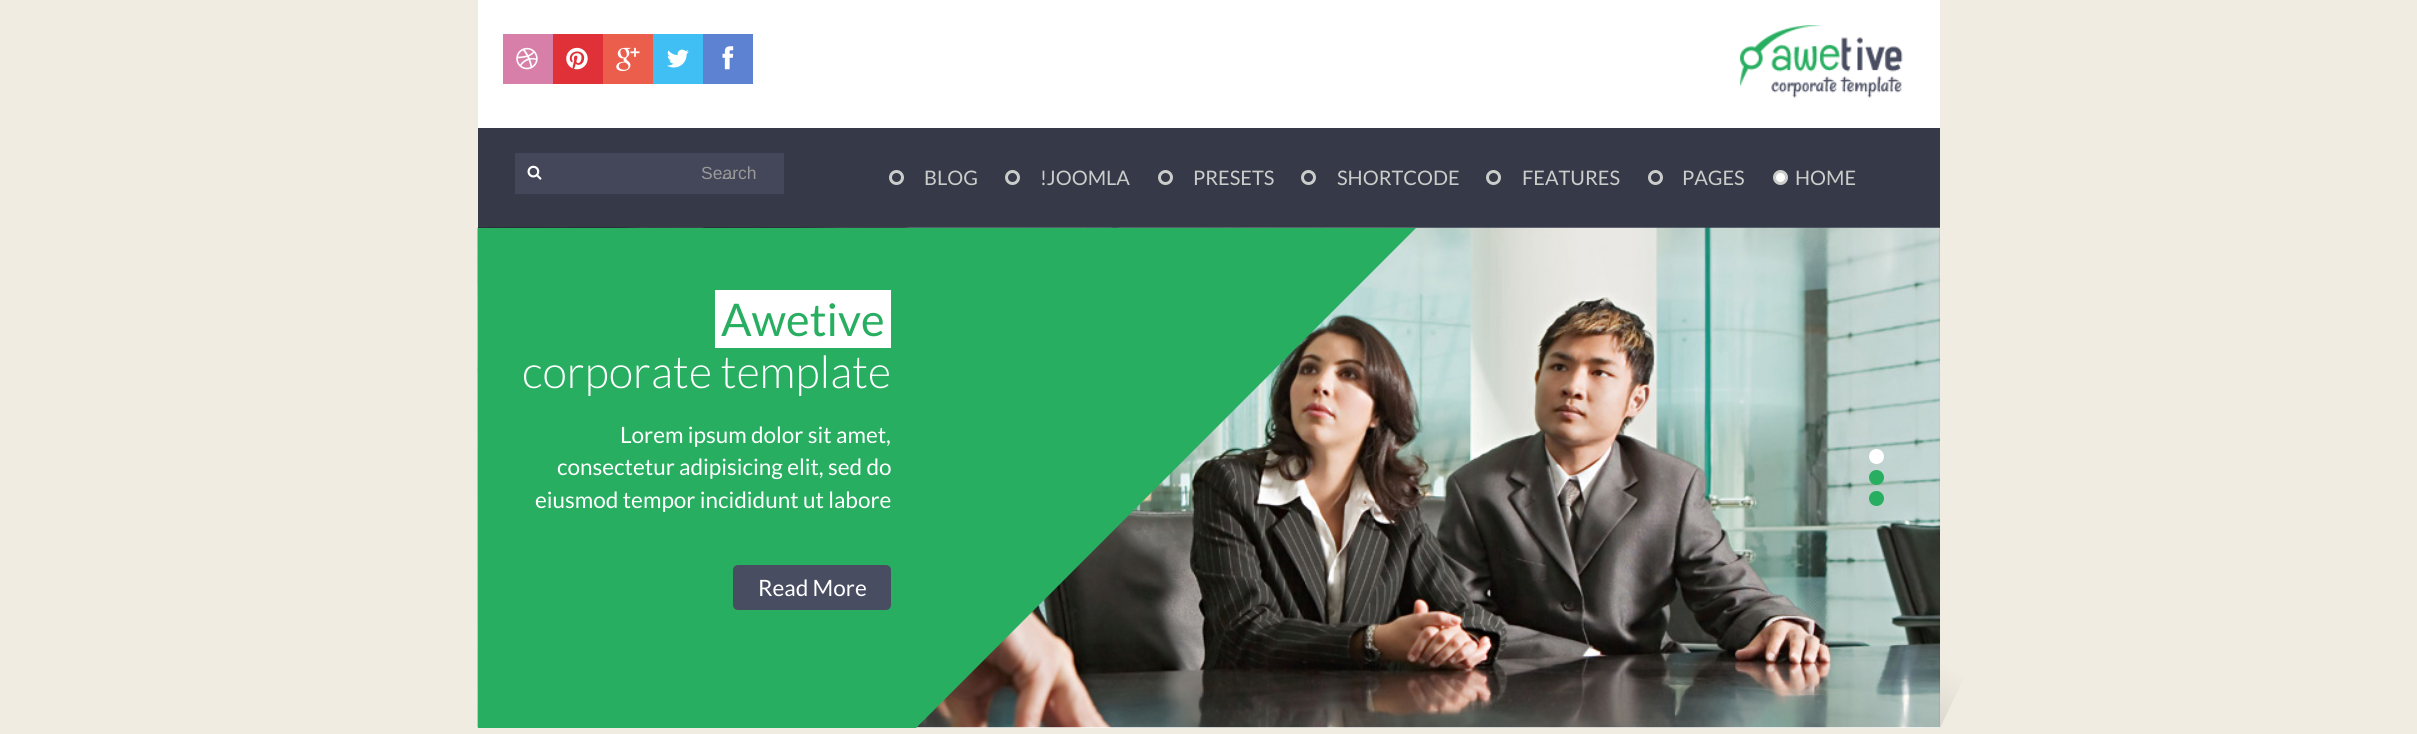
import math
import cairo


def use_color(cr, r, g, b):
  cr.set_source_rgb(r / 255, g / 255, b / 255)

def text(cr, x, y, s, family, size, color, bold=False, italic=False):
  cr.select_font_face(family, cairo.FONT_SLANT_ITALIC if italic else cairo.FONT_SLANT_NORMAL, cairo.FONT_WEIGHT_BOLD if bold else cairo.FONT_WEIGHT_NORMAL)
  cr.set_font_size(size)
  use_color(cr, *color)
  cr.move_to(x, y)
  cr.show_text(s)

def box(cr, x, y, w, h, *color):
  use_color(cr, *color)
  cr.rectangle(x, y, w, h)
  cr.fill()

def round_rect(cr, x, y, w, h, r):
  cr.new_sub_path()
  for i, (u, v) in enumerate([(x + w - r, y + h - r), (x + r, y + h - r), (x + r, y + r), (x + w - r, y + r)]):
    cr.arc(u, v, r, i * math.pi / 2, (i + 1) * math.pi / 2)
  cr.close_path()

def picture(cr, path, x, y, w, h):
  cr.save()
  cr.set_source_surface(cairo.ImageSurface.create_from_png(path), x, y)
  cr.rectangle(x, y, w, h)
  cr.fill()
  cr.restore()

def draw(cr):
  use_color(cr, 240, 236, 225)
  cr.paint()
  box(cr, 478, 0, 1462, 128, 255, 255, 255)
  box(cr, 503, 34, 50, 50, 215, 127, 169)
  picture(cr, "img_01.png", 516, 47, 22, 23)
  box(cr, 553, 34, 50, 50, 225, 49, 56)
  picture(cr, "img_02.png", 566, 47, 22, 23)
  box(cr, 603, 34, 50, 50, 235, 94, 76)
  picture(cr, "img_03.png", 616, 47, 24, 25)
  box(cr, 653, 34, 50, 50, 64, 191, 245)
  picture(cr, "img_04.png", 667, 49, 22, 19)
  box(cr, 703, 34, 50, 50, 93, 130, 209)
  picture(cr, "img_05.png", 722, 46, 12, 24)
  picture(cr, "img_06.png", 1739, 25, 164, 73)
  box(cr, 478, 128, 1462, 100, 54, 57, 72)
  box(cr, 515, 153, 269, 41, 67, 71, 89)
  picture(cr, "img_07.png", 527, 165, 15, 15)
  cr.arc(896.5, 177.5, 6, 0, 2 * math.pi)
  use_color(cr, 203, 205, 202)
  cr.set_line_width(3)
  cr.stroke()
  cr.arc(1012.5, 177.5, 6, 0, 2 * math.pi)
  cr.stroke()
  cr.arc(1165.5, 177.5, 6, 0, 2 * math.pi)
  cr.stroke()
  cr.arc(1308.5, 177.5, 6, 0, 2 * math.pi)
  cr.stroke()
  cr.arc(1493.5, 177.5, 6, 0, 2 * math.pi)
  cr.stroke()
  cr.arc(1655.5, 177.5, 6, 0, 2 * math.pi)
  cr.stroke()
  use_color(cr, 254, 254, 254)
  cr.arc(1780.5, 177.5, 6, 0, 2 * math.pi)
  cr.fill_preserve()
  use_color(cr, 203, 205, 202)
  cr.stroke()
  gradient = cairo.LinearGradient(1945, 665, 1915, 728)
  gradient.add_color_stop_rgba(0, 0.941, 0.925, 0.882, 1)
  gradient.add_color_stop_rgba(1, 0.847, 0.831, 0.796, 1)
  cr.set_source(gradient)
  cr.new_path()
  cr.move_to(1920, 665)
  cr.line_to(1970, 665)
  cr.line_to(1940, 728)
  cr.line_to(1890, 728)
  cr.close_path()
  cr.fill()
  box(cr, 916, 727, 1024, 1, 255, 255, 255)
  picture(cr, "img_08.png", 477, 227, 1463, 501)
  box(cr, 478, 228, 438, 500, 39, 174, 96)
  box(cr, 715, 290, 176, 58, 255, 255, 255)
  use_color(cr, 39, 174, 96)
  cr.new_path()
  cr.move_to(916, 728)
  cr.line_to(916, 228)
  cr.line_to(1416, 228)
  cr.close_path()
  cr.fill()
  use_color(cr, 73, 77, 97)
  round_rect(cr, 733, 565, 158, 45, 5)
  cr.fill()
  use_color(cr, 255, 255, 255)
  cr.arc(1876.5, 456.5, 7.5, 0, 2 * math.pi)
  cr.fill()
  use_color(cr, 39, 174, 96)
  cr.arc(1876.5, 477.5, 7.5, 0, 2 * math.pi)
  cr.fill()
  cr.arc(1876.5, 498.5, 7.5, 0, 2 * math.pi)
  cr.fill()
  text(cr, 701, 179, "Search", "Liberation Sans", 17.5, (153, 153, 153))
  text(cr, 721, 179, "...", "Liberation Sans", 17.5, (153, 153, 153))
  text(cr, 924, 185, "BLOG", "Lato", 20, (203, 205, 202))
  text(cr, 1040, 185, "!JOOMLA", "Lato", 20, (203, 205, 202))
  text(cr, 1193, 185, "PRESETS", "Lato", 20, (203, 205, 202))
  text(cr, 1337, 185, "SHORTCODE", "Lato", 20, (203, 205, 202))
  text(cr, 1522, 185, "FEATURES", "Lato", 20, (203, 205, 202))
  text(cr, 1682, 185, "PAGES", "Lato", 20, (203, 205, 202))
  text(cr, 1795, 185, "HOME", "Lato", 20, (203, 205, 202))
  text(cr, 721, 336, "Awetive", "Lato", 45, (39, 174, 96))
  text(cr, 522, 388, "corporate template", "Lato Light", 45, (255, 255, 255))
  text(cr, 620, 443, "Lorem ipsum dolor sit amet,", "Lato", 22.5, (255, 255, 255))
  text(cr, 557, 475, "consectetur adipisicing elit, sed do", "Lato", 22.5, (255, 255, 255))
  text(cr, 535, 508, "eiusmod tempor incididunt ut labore", "Lato", 22.5, (255, 255, 255))
  text(cr, 758, 596, "Read More", "Lato", 22.5, (255, 255, 255))


surface = cairo.ImageSurface(cairo.FORMAT_RGB24, 2417, 734)
cr = cairo.Context(surface)
options = cairo.FontOptions()
options.set_hint_metrics(cairo.HINT_METRICS_OFF)
options.set_hint_style(cairo.HINT_STYLE_NONE)
cr.set_font_options(options)
cr.set_miter_limit(4)
draw(cr)
surface.write_to_png("out.png")
